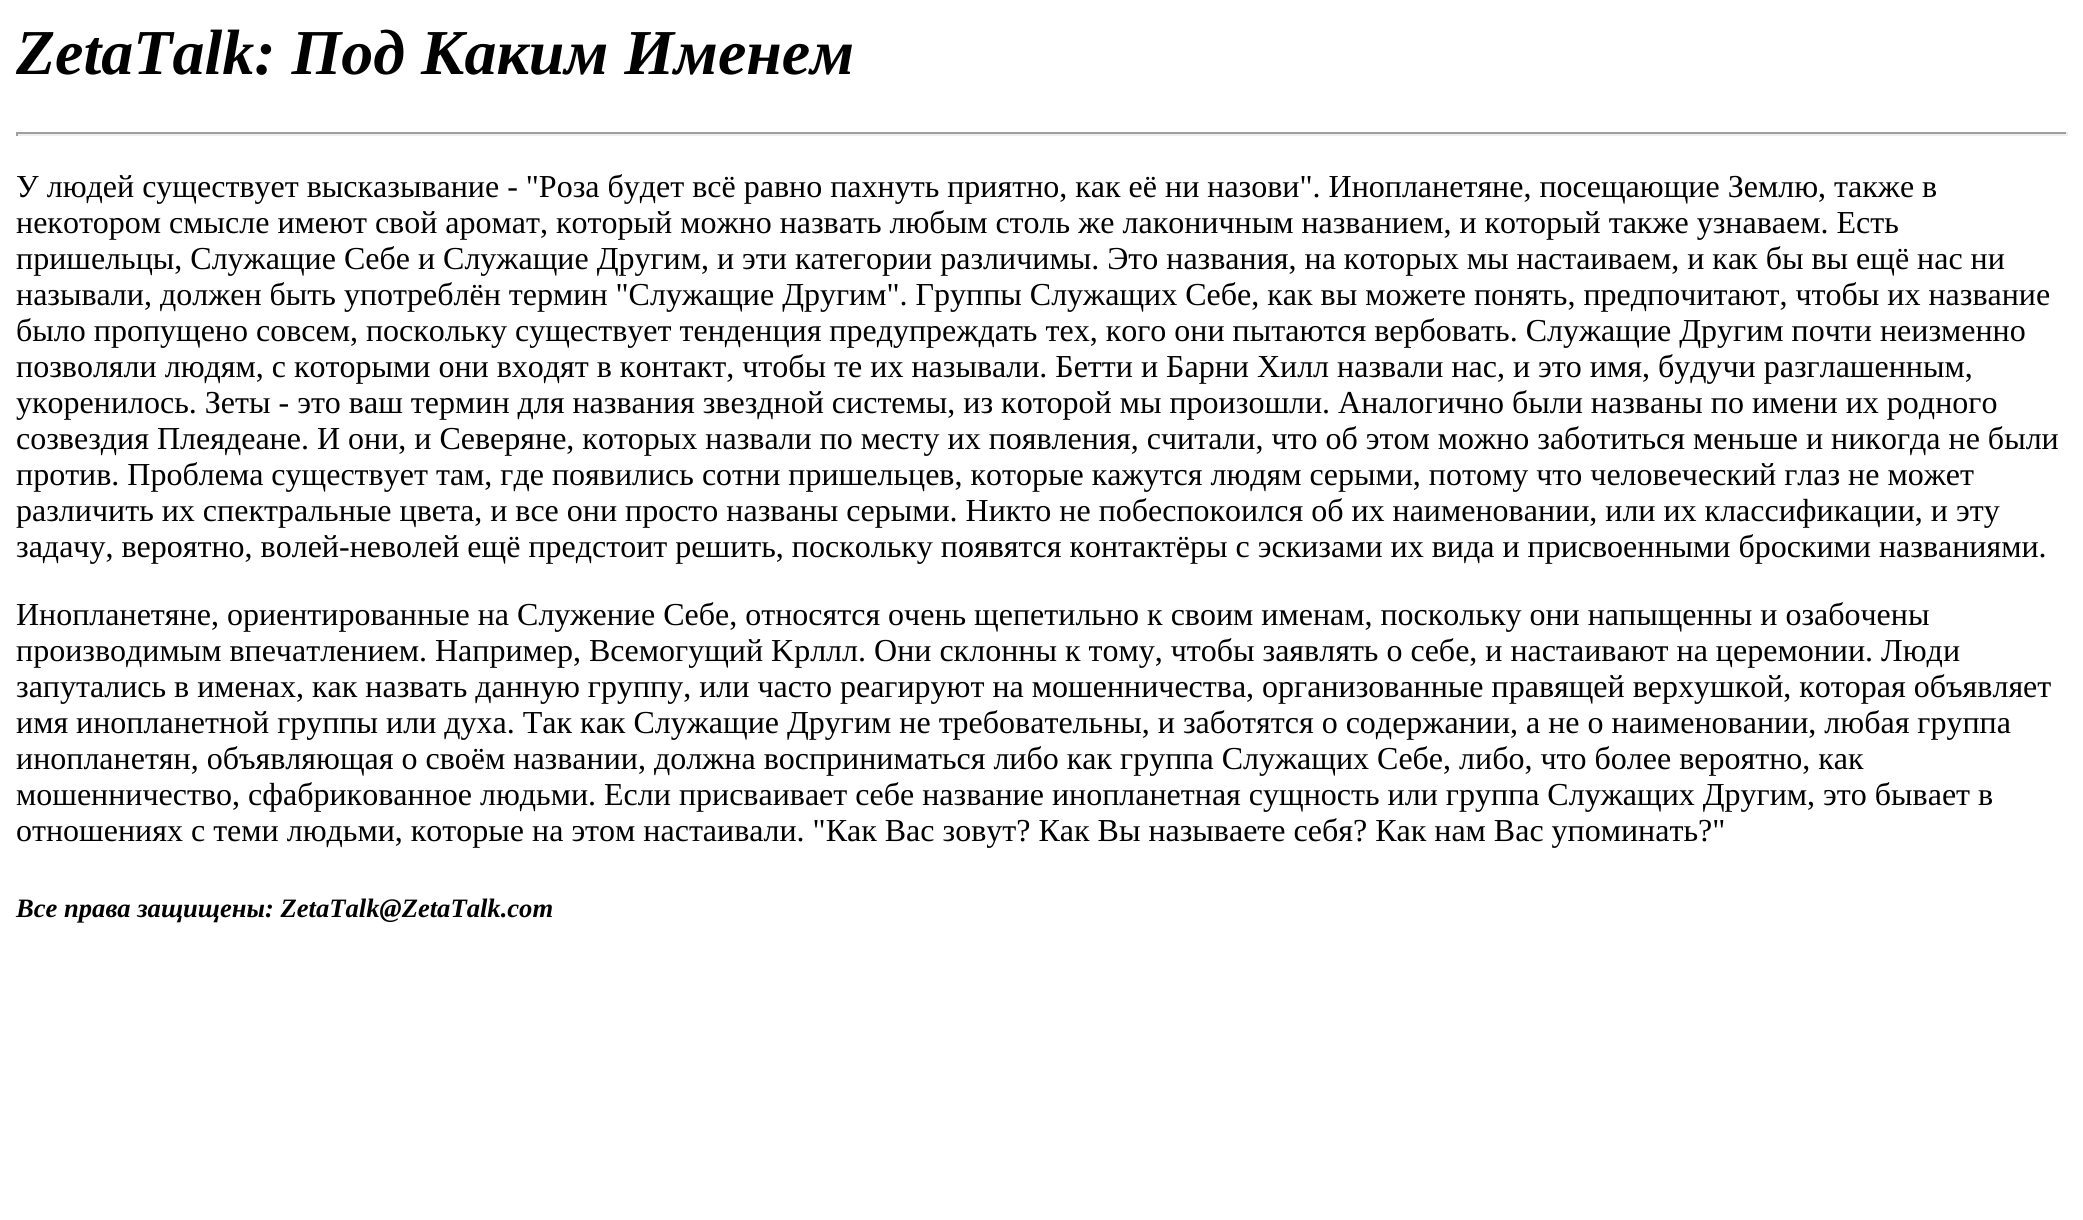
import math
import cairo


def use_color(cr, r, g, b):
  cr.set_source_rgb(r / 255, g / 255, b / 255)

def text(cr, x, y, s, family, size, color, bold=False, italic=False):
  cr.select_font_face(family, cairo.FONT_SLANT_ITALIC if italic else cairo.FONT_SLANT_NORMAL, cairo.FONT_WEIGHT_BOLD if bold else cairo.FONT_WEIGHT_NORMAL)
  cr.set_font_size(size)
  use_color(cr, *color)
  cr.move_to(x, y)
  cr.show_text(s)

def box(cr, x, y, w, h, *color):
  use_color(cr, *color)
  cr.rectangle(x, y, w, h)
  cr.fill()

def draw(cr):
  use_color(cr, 255, 255, 255)
  cr.paint()
  box(cr, 16, 132, 2052, 2, 159, 159, 159)
  box(cr, 2066, 132, 2, 4, 238, 238, 238)
  box(cr, 16, 134, 2052, 2, 238, 238, 238)
  box(cr, 16, 132, 2, 4, 159, 159, 159)
  text(cr, 16, 74, "ZetaTalk: Под Каким Именем", "Liberation Serif", 64, (0, 0, 0), bold=True, italic=True)
  text(cr, 16, 197, "У людей существует высказывание - \"Роза будет всё равно пахнуть приятно, как её ни назови\". Инопланетяне, посещающие Землю, также в", "Liberation Serif", 32, (0, 0, 0))
  text(cr, 16, 233, "некотором смысле имеют свой аромат, который можно назвать любым столь же лаконичным названием, и который также узнаваем. Есть", "Liberation Serif", 32, (0, 0, 0))
  text(cr, 16, 269, "пришельцы, Служащие Себе и Служащие Другим, и эти категории различимы. Это названия, на которых мы настаиваем, и как бы вы ещё нас ни", "Liberation Serif", 32, (0, 0, 0))
  text(cr, 16, 305, "называли, должен быть употреблён термин \"Служащие Другим\". Группы Служащих Себе, как вы можете понять, предпочитают, чтобы их название", "Liberation Serif", 32, (0, 0, 0))
  text(cr, 16, 341, "было пропущено совсем, поскольку существует тенденция предупреждать тех, кого они пытаются вербовать. Служащие Другим почти неизменно", "Liberation Serif", 32, (0, 0, 0))
  text(cr, 16, 377, "позволяли людям, с которыми они входят в контакт, чтобы те их называли. Бетти и Барни Хилл назвали нас, и это имя, будучи разглашенным,", "Liberation Serif", 32, (0, 0, 0))
  text(cr, 16, 413, "укоренилось. Зеты - это ваш термин для названия звездной системы, из которой мы произошли. Аналогично были названы по имени их родного", "Liberation Serif", 32, (0, 0, 0))
  text(cr, 16, 449, "созвездия Плеядеане. И они, и Северяне, которых назвали по месту их появления, считали, что об этом можно заботиться меньше и никогда не были", "Liberation Serif", 32, (0, 0, 0))
  text(cr, 16, 485, "против. Проблема существует там, где появились сотни пришельцев, которые кажутся людям серыми, потому что человеческий глаз не может", "Liberation Serif", 32, (0, 0, 0))
  text(cr, 16, 521, "различить их спектральные цвета, и все они просто названы серыми. Никто не побеспокоился об их наименовании, или их классификации, и эту", "Liberation Serif", 32, (0, 0, 0))
  text(cr, 16, 557, "задачу, вероятно, волей-неволей ещё предстоит решить, поскольку появятся контактёры с эскизами их вида и присвоенными броскими названиями.", "Liberation Serif", 32, (0, 0, 0))
  text(cr, 16, 625, "Инопланетяне, ориентированные на Служение Себе, относятся очень щепетильно к своим именам, поскольку они напыщенны и озабочены", "Liberation Serif", 32, (0, 0, 0))
  text(cr, 16, 661, "производимым впечатлением. Например, Всемогущий Kрллл. Они склонны к тому, чтобы заявлять о себе, и настаивают на церемонии. Люди", "Liberation Serif", 32, (0, 0, 0))
  text(cr, 16, 697, "запутались в именах, как назвать данную группу, или часто реагируют на мошенничества, организованные правящей верхушкой, которая объявляет", "Liberation Serif", 32, (0, 0, 0))
  text(cr, 16, 733, "имя инопланетной группы или духа. Так как Служащие Другим не требовательны, и заботятся о содержании, а не о наименовании, любая группа", "Liberation Serif", 32, (0, 0, 0))
  text(cr, 16, 769, "инопланетян, объявляющая о своём названии, должна восприниматься либо как группа Служащих Себе, либо, что более вероятно, как", "Liberation Serif", 32, (0, 0, 0))
  text(cr, 16, 805, "мошенничество, сфабрикованное людьми. Если присваивает себе название инопланетная сущность или группа Служащих Другим, это бывает в", "Liberation Serif", 32, (0, 0, 0))
  text(cr, 16, 841, "отношениях с теми людьми, которые на этом настаивали. \"Как Вас зовут? Как Вы называете себя? Как нам Вас упоминать?\"", "Liberation Serif", 32, (0, 0, 0))
  text(cr, 16, 917, "Все права защищены: ZetaTalk@ZetaTalk.com", "Liberation Serif", 26.6, (0, 0, 0), bold=True, italic=True)


surface = cairo.ImageSurface(cairo.FORMAT_RGB24, 2083, 1220)
cr = cairo.Context(surface)
options = cairo.FontOptions()
options.set_hint_metrics(cairo.HINT_METRICS_OFF)
options.set_hint_style(cairo.HINT_STYLE_NONE)
cr.set_font_options(options)
cr.set_miter_limit(4)
draw(cr)
surface.write_to_png("out.png")
